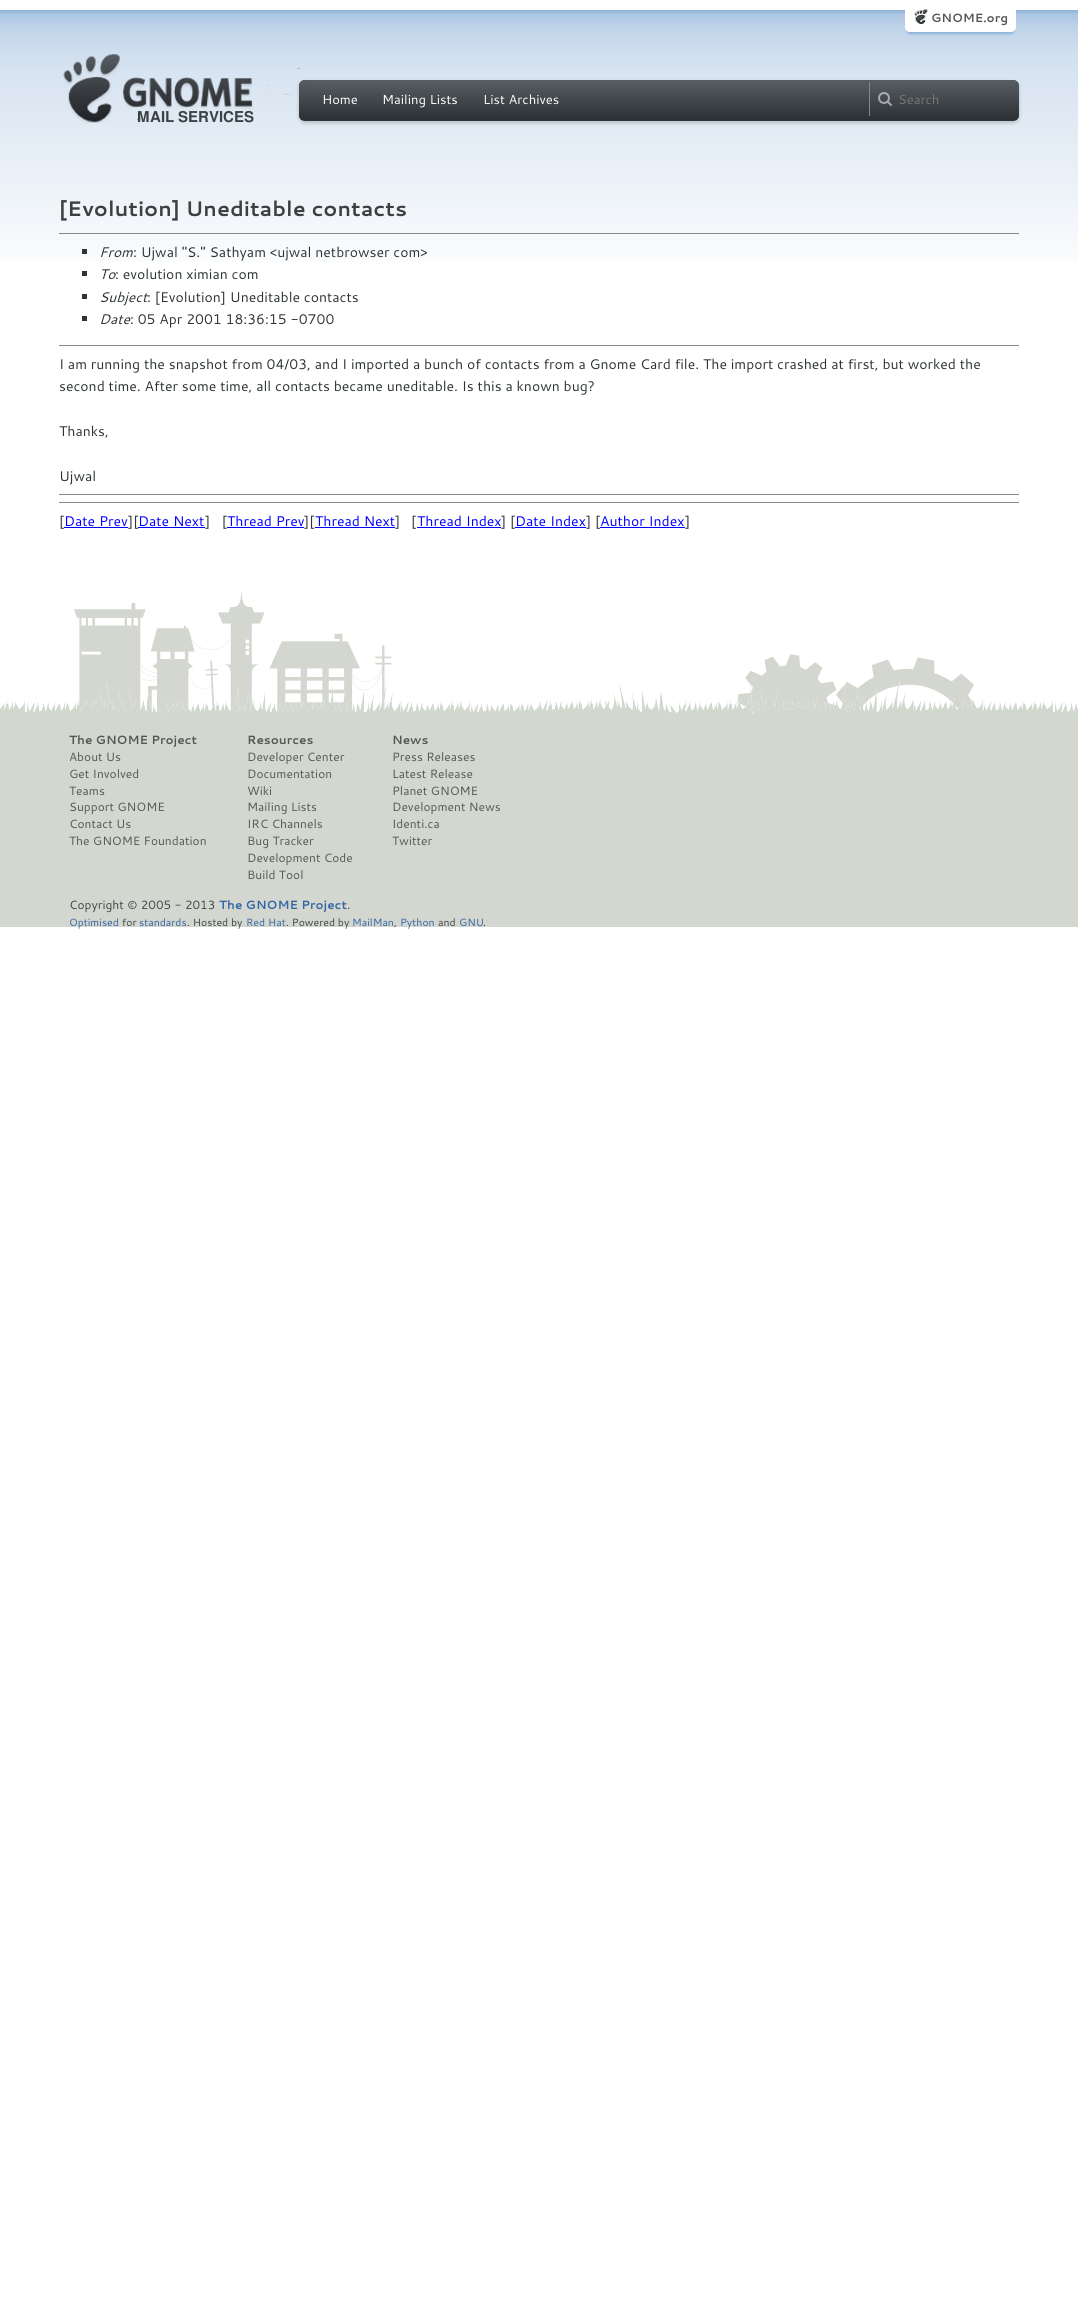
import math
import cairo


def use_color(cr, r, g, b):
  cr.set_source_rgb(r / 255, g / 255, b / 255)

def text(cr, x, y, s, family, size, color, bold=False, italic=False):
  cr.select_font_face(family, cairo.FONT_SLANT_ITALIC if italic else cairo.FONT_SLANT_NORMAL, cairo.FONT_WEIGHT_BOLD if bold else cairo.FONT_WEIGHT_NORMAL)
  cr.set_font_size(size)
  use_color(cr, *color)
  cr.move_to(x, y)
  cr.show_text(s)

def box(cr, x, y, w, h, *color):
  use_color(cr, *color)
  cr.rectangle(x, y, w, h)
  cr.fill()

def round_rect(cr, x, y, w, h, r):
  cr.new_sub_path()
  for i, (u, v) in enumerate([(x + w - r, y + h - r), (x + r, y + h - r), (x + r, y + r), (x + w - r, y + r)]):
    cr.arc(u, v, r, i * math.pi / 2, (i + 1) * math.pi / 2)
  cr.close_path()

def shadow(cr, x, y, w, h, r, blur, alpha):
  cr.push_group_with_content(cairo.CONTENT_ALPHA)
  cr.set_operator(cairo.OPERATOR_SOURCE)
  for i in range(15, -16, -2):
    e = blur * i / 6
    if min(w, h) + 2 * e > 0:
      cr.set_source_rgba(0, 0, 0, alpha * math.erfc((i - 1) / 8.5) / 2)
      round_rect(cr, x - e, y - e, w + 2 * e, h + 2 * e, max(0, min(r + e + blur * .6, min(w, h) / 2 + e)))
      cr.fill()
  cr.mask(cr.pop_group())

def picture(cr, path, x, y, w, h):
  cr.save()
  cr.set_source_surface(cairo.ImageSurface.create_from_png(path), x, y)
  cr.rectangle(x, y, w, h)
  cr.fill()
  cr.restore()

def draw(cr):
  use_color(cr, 255, 255, 255)
  cr.paint()
  picture(cr, "img_01.png", 0, 10, 1078, 252)
  use_color(cr, 143, 179, 217)
  shadow(cr, 907, 10, 107, 24, 3, 1, 1)
  use_color(cr, 255, 255, 255)
  round_rect(cr, 905, 4, 111, 28, 5)
  cr.fill()
  picture(cr, "img_02.png", 914, 9, 14, 15)
  picture(cr, "img_03.png", 63, 54, 238, 69)
  use_color(cr, 0, 0, 0)
  shadow(cr, 299, 82, 720, 41, 6, 2, 0.2)
  use_color(cr, 46, 52, 54)
  round_rect(cr, 299, 80, 720, 41, 6)
  cr.fill()
  picture(cr, "img_04.png", 299, 80, 720, 40)
  picture(cr, "img_05.png", 878, 92, 15, 15)
  box(cr, 869, 82, 1, 34, 136, 136, 136)
  box(cr, 59, 233, 960, 1, 136, 136, 136)
  box(cr, 82, 249, 5, 5, 46, 52, 54)
  box(cr, 82, 271, 5, 5, 46, 52, 54)
  box(cr, 82, 294, 5, 5, 46, 52, 54)
  box(cr, 82, 316, 5, 5, 46, 52, 54)
  box(cr, 59, 345, 960, 1, 136, 136, 136)
  box(cr, 59, 494, 960, 1, 136, 136, 136)
  box(cr, 59, 502, 960, 1, 136, 136, 136)
  box(cr, 64, 527, 64, 1, 0, 0, 255)
  box(cr, 227, 527, 77, 1, 0, 0, 255)
  box(cr, 315, 527, 80, 1, 0, 0, 255)
  box(cr, 417, 527, 84, 1, 0, 0, 255)
  box(cr, 515, 527, 71, 1, 0, 0, 255)
  box(cr, 600, 527, 85, 1, 0, 0, 255)
  picture(cr, "img_06.png", 74, 591, 918, 121)
  picture(cr, "img_07.png", 0, 680, 1078, 38)
  box(cr, 0, 718, 1078, 209, 211, 215, 207)
  text(cr, 931, 22, "GNOME.org", "Cantarell", 12, (85, 87, 83), bold=True)
  text(cr, 322, 104, "Home", "Cantarell", 13, (255, 255, 255))
  text(cr, 382, 104, "Mailing Lists", "Cantarell", 13, (255, 255, 255))
  text(cr, 483, 104, "List Archives", "Cantarell", 13, (255, 255, 255))
  text(cr, 898, 104, "Search", "Cantarell", 13, (117, 117, 117))
  text(cr, 59, 216, "[Evolution] Uneditable contacts", "Cantarell", 21, (63, 63, 63), bold=True)
  text(cr, 99, 257, "From", "Cantarell", 14, (46, 52, 54), italic=True)
  text(cr, 133, 257, ": Ujwal \"S.\" Sathyam <ujwal netbrowser com>", "Cantarell", 14, (46, 52, 54))
  text(cr, 99, 279, "To", "Cantarell", 14, (46, 52, 54), italic=True)
  text(cr, 115, 279, ": evolution ximian com", "Cantarell", 14, (46, 52, 54))
  text(cr, 99, 302, "Subject", "Cantarell", 14, (46, 52, 54), italic=True)
  text(cr, 147, 302, ": [Evolution] Uneditable contacts", "Cantarell", 14, (46, 52, 54))
  text(cr, 99, 324, "Date", "Cantarell", 14, (46, 52, 54), italic=True)
  text(cr, 130, 324, ": 05 Apr 2001 18:36:15 -0700", "Cantarell", 14, (46, 52, 54))
  text(cr, 59, 369, "I am running the snapshot from 04/03, and I imported a bunch of contacts from a Gnome Card file. The import crashed at first, but worked the", "Cantarell", 14, (46, 52, 54))
  text(cr, 59, 391, "second time. After some time, all contacts became uneditable. Is this a known bug?", "Cantarell", 14, (46, 52, 54))
  text(cr, 59, 436, "Thanks,", "Cantarell", 14, (46, 52, 54))
  text(cr, 59, 481, "Ujwal", "Cantarell", 14, (46, 52, 54))
  text(cr, 59, 526, "[", "Cantarell", 14, (46, 52, 54))
  text(cr, 64, 526, "Date Prev", "Cantarell", 14, (0, 0, 255))
  text(cr, 128, 526, "][", "Cantarell", 14, (46, 52, 54))
  text(cr, 138, 526, "Date Next", "Cantarell", 14, (0, 0, 255))
  box(cr, 138, 527, 67, 1, 0, 0, 255)
  text(cr, 205, 526, "]   [", "Cantarell", 14, (46, 52, 54))
  text(cr, 227, 526, "Thread Prev", "Cantarell", 14, (0, 0, 255))
  text(cr, 304, 526, "][", "Cantarell", 14, (46, 52, 54))
  text(cr, 315, 526, "Thread Next", "Cantarell", 14, (0, 0, 255))
  text(cr, 395, 526, "]", "Cantarell", 14, (46, 52, 54))
  text(cr, 411, 526, "[", "Cantarell", 14, (46, 52, 54))
  text(cr, 417, 526, "Thread Index", "Cantarell", 14, (0, 0, 255))
  text(cr, 501, 526, "] [", "Cantarell", 14, (46, 52, 54))
  text(cr, 515, 526, "Date Index", "Cantarell", 14, (0, 0, 255))
  text(cr, 586, 526, "] [", "Cantarell", 14, (46, 52, 54))
  text(cr, 600, 526, "Author Index", "Cantarell", 14, (0, 0, 255))
  text(cr, 685, 526, "]", "Cantarell", 14, (46, 52, 54))
  text(cr, 69, 744, "The GNOME Project", "Cantarell", 12, (85, 87, 83), bold=True)
  text(cr, 69, 761, "About Us", "Cantarell", 12, (85, 87, 83))
  text(cr, 69, 778, "Get Involved", "Cantarell", 12, (85, 87, 83))
  text(cr, 69, 795, "Teams", "Cantarell", 12, (85, 87, 83))
  text(cr, 69, 811, "Support GNOME", "Cantarell", 12, (85, 87, 83))
  text(cr, 69, 828, "Contact Us", "Cantarell", 12, (85, 87, 83))
  text(cr, 69, 845, "The GNOME Foundation", "Cantarell", 12, (85, 87, 83))
  text(cr, 247, 744, "Resources", "Cantarell", 12, (85, 87, 83), bold=True)
  text(cr, 247, 761, "Developer Center", "Cantarell", 12, (85, 87, 83))
  text(cr, 247, 778, "Documentation", "Cantarell", 12, (85, 87, 83))
  text(cr, 247, 795, "Wiki", "Cantarell", 12, (85, 87, 83))
  text(cr, 247, 811, "Mailing Lists", "Cantarell", 12, (85, 87, 83))
  text(cr, 247, 828, "IRC Channels", "Cantarell", 12, (85, 87, 83))
  text(cr, 247, 845, "Bug Tracker", "Cantarell", 12, (85, 87, 83))
  text(cr, 247, 862, "Development Code", "Cantarell", 12, (85, 87, 83))
  text(cr, 247, 879, "Build Tool", "Cantarell", 12, (85, 87, 83))
  text(cr, 392, 744, "News", "Cantarell", 12, (85, 87, 83), bold=True)
  text(cr, 392, 761, "Press Releases", "Cantarell", 12, (85, 87, 83))
  text(cr, 392, 778, "Latest Release", "Cantarell", 12, (85, 87, 83))
  text(cr, 392, 795, "Planet GNOME", "Cantarell", 12, (85, 87, 83))
  text(cr, 392, 811, "Development News", "Cantarell", 12, (85, 87, 83))
  text(cr, 392, 828, "Identi.ca", "Cantarell", 12, (85, 87, 83))
  text(cr, 392, 845, "Twitter", "Cantarell", 12, (85, 87, 83))
  text(cr, 69, 909, "Copyright © 2005 - 2013", "Cantarell", 12, (63, 68, 72))
  text(cr, 219, 909, "The GNOME Project", "Cantarell", 12, (52, 101, 164), bold=True)
  text(cr, 347, 909, ".", "Cantarell", 12, (63, 68, 72))
  text(cr, 69, 926, "Optimised", "Cantarell", 10.5, (52, 101, 164))
  text(cr, 122, 926, "for", "Cantarell", 10.5, (63, 68, 72))
  text(cr, 139, 926, "standards", "Cantarell", 10.5, (52, 101, 164))
  text(cr, 187, 926, ". Hosted by", "Cantarell", 10.5, (63, 68, 72))
  text(cr, 246, 926, "Red Hat", "Cantarell", 10.5, (52, 101, 164))
  text(cr, 286, 926, ". Powered by", "Cantarell", 10.5, (63, 68, 72))
  text(cr, 352, 926, "MailMan", "Cantarell", 10.5, (52, 101, 164))
  text(cr, 394, 926, ",", "Cantarell", 10.5, (63, 68, 72))
  text(cr, 400, 926, "Python", "Cantarell", 10.5, (52, 101, 164))
  text(cr, 438, 926, "and", "Cantarell", 10.5, (63, 68, 72))
  text(cr, 459, 926, "GNU", "Cantarell", 10.5, (52, 101, 164))
  text(cr, 483, 926, ".", "Cantarell", 10.5, (63, 68, 72))


surface = cairo.ImageSurface(cairo.FORMAT_RGB24, 1078, 2300)
cr = cairo.Context(surface)
options = cairo.FontOptions()
options.set_hint_metrics(cairo.HINT_METRICS_OFF)
options.set_hint_style(cairo.HINT_STYLE_NONE)
cr.set_font_options(options)
cr.set_miter_limit(4)
draw(cr)
surface.write_to_png("out.png")
